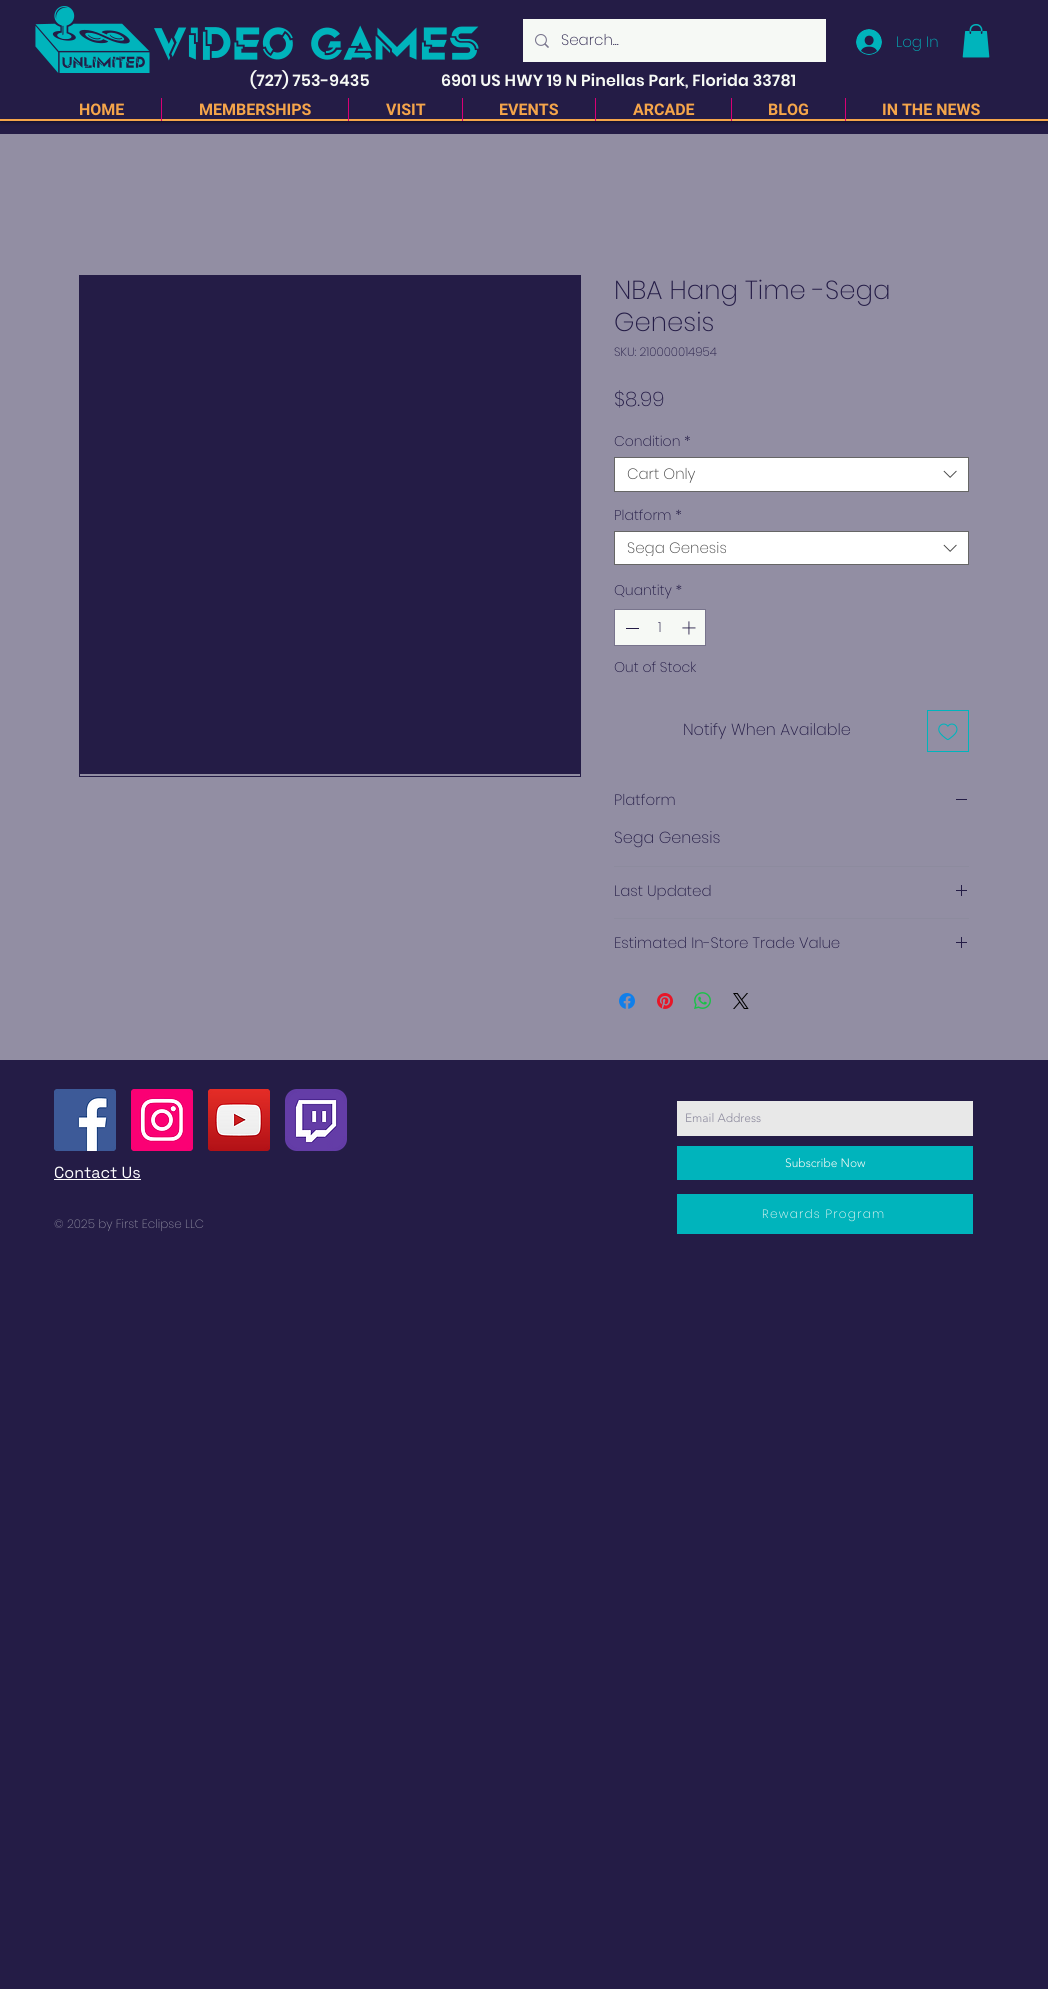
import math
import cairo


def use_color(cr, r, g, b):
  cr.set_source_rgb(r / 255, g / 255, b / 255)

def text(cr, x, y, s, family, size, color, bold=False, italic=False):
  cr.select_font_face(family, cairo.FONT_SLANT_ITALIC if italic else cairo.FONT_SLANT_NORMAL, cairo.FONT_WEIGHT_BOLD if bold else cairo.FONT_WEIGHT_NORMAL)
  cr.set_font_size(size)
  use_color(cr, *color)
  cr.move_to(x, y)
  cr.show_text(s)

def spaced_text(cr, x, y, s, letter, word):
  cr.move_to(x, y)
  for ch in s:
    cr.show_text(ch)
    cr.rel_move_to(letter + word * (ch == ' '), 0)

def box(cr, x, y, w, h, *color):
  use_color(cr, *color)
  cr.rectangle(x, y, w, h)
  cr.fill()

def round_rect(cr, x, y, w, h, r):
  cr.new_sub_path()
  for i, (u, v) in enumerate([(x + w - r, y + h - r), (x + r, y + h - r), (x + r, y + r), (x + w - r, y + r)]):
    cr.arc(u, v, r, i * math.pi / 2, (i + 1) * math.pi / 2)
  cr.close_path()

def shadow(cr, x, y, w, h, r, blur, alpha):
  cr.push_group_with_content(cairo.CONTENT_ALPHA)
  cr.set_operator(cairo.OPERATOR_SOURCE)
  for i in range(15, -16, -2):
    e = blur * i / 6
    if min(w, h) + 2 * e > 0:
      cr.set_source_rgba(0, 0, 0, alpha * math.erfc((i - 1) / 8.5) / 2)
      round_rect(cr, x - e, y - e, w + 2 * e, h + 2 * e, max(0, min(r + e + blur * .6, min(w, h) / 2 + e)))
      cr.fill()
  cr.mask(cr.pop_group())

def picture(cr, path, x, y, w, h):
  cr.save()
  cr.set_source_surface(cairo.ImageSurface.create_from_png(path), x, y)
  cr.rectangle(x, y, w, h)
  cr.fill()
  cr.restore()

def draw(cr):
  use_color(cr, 36, 28, 70)
  cr.paint()
  cr.save()
  cr.rectangle(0, 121, 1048, 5)
  cr.clip()
  use_color(cr, 0, 0, 0)
  shadow(cr, 0, 0, 1048, 121, 0, 2.5, 0.7)
  cr.restore()
  box(cr, 0, 119, 1048, 2, 245, 165, 74)
  picture(cr, "img_01.png", 35, 6, 444, 67)
  box(cr, 523, 19, 303, 43, 246, 249, 245)
  picture(cr, "img_02.png", 535, 34, 14, 14)
  picture(cr, "img_03.png", 856, 29, 26, 26)
  picture(cr, "img_04.png", 962, 24, 28, 34)
  box(cr, 161, 98, 1, 23, 217, 0, 117)
  box(cr, 348, 98, 1, 23, 217, 0, 117)
  box(cr, 462, 98, 1, 23, 217, 0, 117)
  box(cr, 595, 98, 1, 23, 217, 0, 117)
  box(cr, 731, 98, 1, 23, 217, 0, 117)
  box(cr, 845, 98, 1, 23, 217, 0, 117)
  box(cr, 0, 134, 1048, 926, 146, 142, 163)
  cr.rectangle(79.5, 275.5, 501, 501)
  use_color(cr, 36, 28, 70)
  cr.set_line_width(1)
  cr.stroke()
  box(cr, 80, 276, 500, 498, 36, 28, 70)
  use_color(cr, 255, 255, 255)
  cr.rectangle(614.5, 457.5, 354, 34)
  cr.fill_preserve()
  use_color(cr, 102, 102, 102)
  cr.stroke()
  picture(cr, "img_05.png", 943, 470, 14, 8)
  use_color(cr, 255, 255, 255)
  cr.rectangle(614.5, 531.5, 354, 33)
  cr.fill_preserve()
  use_color(cr, 102, 102, 102)
  cr.stroke()
  picture(cr, "img_05.png", 943, 544, 14, 8)
  use_color(cr, 246, 249, 245)
  cr.rectangle(614.5, 609.5, 91, 36)
  cr.fill_preserve()
  use_color(cr, 120, 116, 140)
  cr.stroke()
  box(cr, 626, 628, 13, 1, 36, 28, 70)
  picture(cr, "img_06.png", 682, 621, 14, 14)
  cr.rectangle(927.5, 710.5, 41, 41)
  use_color(cr, 0, 180, 188)
  cr.stroke()
  picture(cr, "img_07.png", 938, 723, 20, 18)
  box(cr, 614, 866, 355, 1, 141, 139, 158)
  box(cr, 956, 799, 11, 1, 36, 28, 70)
  box(cr, 614, 918, 355, 1, 141, 139, 158)
  picture(cr, "img_08.png", 956, 885, 11, 11)
  picture(cr, "img_08.png", 956, 937, 11, 11)
  picture(cr, "img_09.png", 619, 993, 16, 16)
  picture(cr, "img_10.png", 657, 993, 16, 16)
  picture(cr, "img_11.png", 694, 992, 17, 17)
  picture(cr, "img_12.png", 733, 993, 16, 16)
  picture(cr, "img_13.png", 54, 1089, 62, 62)
  picture(cr, "img_14.png", 131, 1089, 62, 62)
  picture(cr, "img_15.png", 208, 1089, 62, 62)
  picture(cr, "img_16.png", 285, 1089, 62, 62)
  box(cr, 677, 1101, 296, 35, 232, 232, 232)
  box(cr, 677, 1146, 296, 34, 0, 180, 188)
  box(cr, 54, 1179, 87, 1, 255, 255, 255)
  box(cr, 677, 1194, 296, 40, 0, 180, 188)
  text(cr, 561, 45, "Search...", "Poppins ExtraLight", 15, (36, 28, 70))
  text(cr, 896, 47, "Log In", "Poppins ExtraLight", 15, (0, 180, 188))
  cr.select_font_face("Poppins SemiBold")
  cr.set_font_size(16)
  use_color(cr, 246, 249, 245)
  spaced_text(cr, 250, 86, "(727) 753-9435", 0.15, 0)
  spaced_text(cr, 441, 86, "6901 US HWY 19 N Pinellas Park, Florida 33781", 0.15, 0)
  text(cr, 79, 115, "HOME", "Roboto", 16, (245, 165, 74), bold=True)
  text(cr, 199, 115, "MEMBERSHIPS", "Roboto", 16, (245, 165, 74), bold=True)
  text(cr, 386, 115, "VISIT", "Roboto", 16, (245, 165, 74), bold=True)
  text(cr, 499, 115, "EVENTS", "Roboto", 16, (245, 165, 74), bold=True)
  text(cr, 633, 115, "ARCADE", "Roboto", 16, (245, 165, 74), bold=True)
  text(cr, 768, 115, "BLOG", "Roboto", 16, (245, 165, 74), bold=True)
  text(cr, 882, 115, "IN THE NEWS", "Roboto", 16, (245, 165, 74), bold=True)
  text(cr, 614, 299, "NBA Hang Time -Sega", "Poppins ExtraLight", 26, (36, 28, 70))
  text(cr, 614, 331, "Genesis", "Poppins ExtraLight", 26, (36, 28, 70))
  text(cr, 614, 356, "SKU: 210000014954", "Poppins ExtraLight", 12, (36, 28, 70))
  text(cr, 614, 406, "$8.99", "Poppins ExtraLight", 20, (36, 28, 70))
  text(cr, 614, 446, "Condition *", "Poppins ExtraLight", 14, (36, 28, 70))
  text(cr, 627, 479, "Cart Only", "Poppins ExtraLight", 15, (68, 68, 68))
  text(cr, 614, 520, "Platform *", "Poppins ExtraLight", 14, (36, 28, 70))
  cr.save()
  cr.rectangle(627, 540, 308, 16)
  cr.clip()
  text(cr, 627, 553, "Sega Genesis", "Poppins ExtraLight", 15, (68, 68, 68))
  cr.restore()
  text(cr, 614, 595, "Quantity *", "Poppins ExtraLight", 14, (36, 28, 70))
  text(cr, 658, 632, "1", "Poppins ExtraLight", 14, (36, 28, 70))
  text(cr, 614, 672, "Out of Stock", "Poppins ExtraLight", 14, (36, 28, 70))
  text(cr, 683, 735, "Notify When Available", "Poppins ExtraLight", 16, (36, 28, 70))
  text(cr, 614, 805, "Platform", "Poppins ExtraLight", 15, (36, 28, 70))
  text(cr, 614, 843, "Sega Genesis", "Poppins ExtraLight", 16, (36, 28, 70))
  text(cr, 614, 896, "Last Updated", "Poppins ExtraLight", 15, (36, 28, 70))
  text(cr, 614, 948, "Estimated In-Store Trade Value", "Poppins ExtraLight", 15, (36, 28, 70))
  text(cr, 685, 1122, "Email Address", "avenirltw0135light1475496 Light", 12, (141, 139, 158))
  text(cr, 785, 1167, "Subscribe Now", "avenirltw0135light1475496 Light", 12, (246, 249, 245))
  text(cr, 54, 1178, "Contact Us", "Space Grotesk", 16, (255, 255, 255))
  cr.select_font_face("Poppins ExtraLight")
  cr.set_font_size(12)
  use_color(cr, 246, 249, 245)
  spaced_text(cr, 762, 1218, "Rewards Program", 1.25, 0)
  text(cr, 54, 1228, "© 2025 by First Eclipse LLC", "Poppins ExtraLight", 12, (141, 139, 158))


surface = cairo.ImageSurface(cairo.FORMAT_RGB24, 1048, 1989)
cr = cairo.Context(surface)
options = cairo.FontOptions()
options.set_hint_metrics(cairo.HINT_METRICS_OFF)
options.set_hint_style(cairo.HINT_STYLE_NONE)
cr.set_font_options(options)
cr.set_miter_limit(4)
draw(cr)
surface.write_to_png("out.png")
